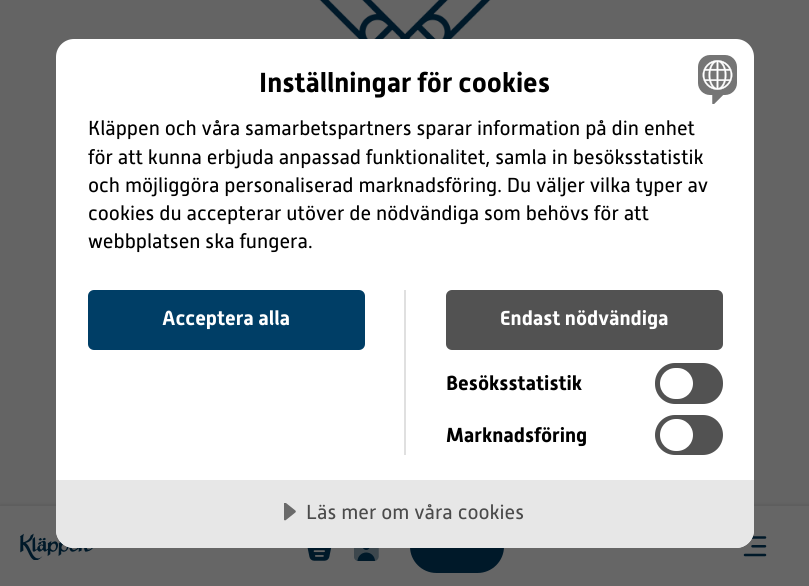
import math
import cairo


def use_color(cr, r, g, b):
  cr.set_source_rgb(r / 255, g / 255, b / 255)

def text(cr, x, y, s, family, size, color, bold=False, italic=False):
  cr.select_font_face(family, cairo.FONT_SLANT_ITALIC if italic else cairo.FONT_SLANT_NORMAL, cairo.FONT_WEIGHT_BOLD if bold else cairo.FONT_WEIGHT_NORMAL)
  cr.set_font_size(size)
  use_color(cr, *color)
  cr.move_to(x, y)
  cr.show_text(s)

def box(cr, x, y, w, h, *color):
  use_color(cr, *color)
  cr.rectangle(x, y, w, h)
  cr.fill()

def round_rect(cr, x, y, w, h, r):
  cr.new_sub_path()
  for i, (u, v) in enumerate([(x + w - r, y + h - r), (x + r, y + h - r), (x + r, y + r), (x + w - r, y + r)]):
    cr.arc(u, v, r, i * math.pi / 2, (i + 1) * math.pi / 2)
  cr.close_path()

def shadow(cr, x, y, w, h, r, blur, alpha):
  cr.push_group_with_content(cairo.CONTENT_ALPHA)
  cr.set_operator(cairo.OPERATOR_SOURCE)
  for i in range(15, -16, -2):
    e = blur * i / 6
    if min(w, h) + 2 * e > 0:
      cr.set_source_rgba(0, 0, 0, alpha * math.erfc((i - 1) / 8.5) / 2)
      round_rect(cr, x - e, y - e, w + 2 * e, h + 2 * e, max(0, min(r + e + blur * .6, min(w, h) / 2 + e)))
      cr.fill()
  cr.mask(cr.pop_group())

def picture(cr, path, x, y, w, h):
  cr.save()
  cr.set_source_surface(cairo.ImageSurface.create_from_png(path), x, y)
  cr.rectangle(x, y, w, h)
  cr.fill()
  cr.restore()

def draw(cr):
  use_color(cr, 100, 100, 100)
  cr.paint()
  picture(cr, "img_01.png", 319, 0, 172, 39)
  use_color(cr, 0, 0, 0)
  shadow(cr, 0, 505, 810, 80, 0, 2, 0.11)
  box(cr, 0, 506, 809, 80, 102, 102, 102)
  picture(cr, "img_04.png", 20, 533, 73, 27)
  use_color(cr, 0, 25, 41)
  round_rect(cr, 410, 520, 94, 53, 26.5)
  cr.fill()
  picture(cr, "img_07.png", 743, 536, 24, 21)
  use_color(cr, 255, 255, 255)
  round_rect(cr, 56, 39, 698, 509, 18)
  cr.fill()
  box(cr, 404, 290, 2, 165, 224, 224, 224)
  use_color(cr, 0, 62, 102)
  round_rect(cr, 88, 290, 277, 60, 6)
  cr.fill()
  use_color(cr, 82, 82, 82)
  round_rect(cr, 446, 290, 277, 60, 6)
  cr.fill()
  round_rect(cr, 655, 363, 68, 41, 20)
  cr.fill()
  use_color(cr, 255, 255, 255)
  round_rect(cr, 660, 368, 33, 31, 15.5)
  cr.fill()
  use_color(cr, 82, 82, 82)
  round_rect(cr, 655, 415, 68, 40, 20)
  cr.fill()
  use_color(cr, 255, 255, 255)
  round_rect(cr, 660, 419, 33, 32, 16)
  cr.fill()
  picture(cr, "img_02.png", 698, 55, 39, 49)
  use_color(cr, 231, 231, 231)
  cr.new_path()
  cr.move_to(56, 480)
  cr.line_to(754, 480)
  cr.line_to(754, 530)
  cr.curve_to(754, 540, 746, 548, 736, 548)
  cr.line_to(74, 548)
  cr.curve_to(64, 548, 56, 540, 56, 530)
  cr.close_path()
  cr.fill()
  picture(cr, "img_03.png", 284, 503, 12, 18)
  picture(cr, "img_05.png", 307, 548, 25, 13)
  picture(cr, "img_06.png", 354, 548, 25, 13)
  text(cr, 259, 92, "Inställningar för cookies", "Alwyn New", 27.5, (0, 0, 0), bold=True)
  text(cr, 88, 135, "Kläppen och våra samarbetspartners sparar information på din enhet", "Alwyn New", 20.25, (0, 0, 0))
  text(cr, 88, 164, "för att kunna erbjuda anpassad funktionalitet, samla in besöksstatistik", "Alwyn New", 20.25, (0, 0, 0))
  text(cr, 88, 192, "och möjliggöra personaliserad marknadsföring. Du väljer vilka typer av", "Alwyn New", 20.25, (0, 0, 0))
  text(cr, 88, 220, "cookies du accepterar utöver de nödvändiga som behövs för att", "Alwyn New", 20.25, (0, 0, 0))
  text(cr, 88, 248, "webbplatsen ska fungera.", "Alwyn New", 20.25, (0, 0, 0))
  text(cr, 162, 325, "Acceptera alla", "Alwyn New", 20.25, (255, 255, 255), bold=True)
  text(cr, 500, 325, "Endast nödvändiga", "Alwyn New", 20.25, (255, 255, 255), bold=True)
  text(cr, 446, 390, "Besöksstatistik", "Alwyn New", 20.25, (0, 0, 0), bold=True)
  text(cr, 446, 442, "Marknadsföring", "Alwyn New", 20.25, (0, 0, 0), bold=True)
  text(cr, 306, 519, "Läs mer om våra cookies", "Alwyn New", 20.25, (75, 75, 75))


surface = cairo.ImageSurface(cairo.FORMAT_RGB24, 809, 586)
cr = cairo.Context(surface)
options = cairo.FontOptions()
options.set_hint_metrics(cairo.HINT_METRICS_OFF)
options.set_hint_style(cairo.HINT_STYLE_NONE)
cr.set_font_options(options)
cr.set_miter_limit(4)
draw(cr)
surface.write_to_png("out.png")
